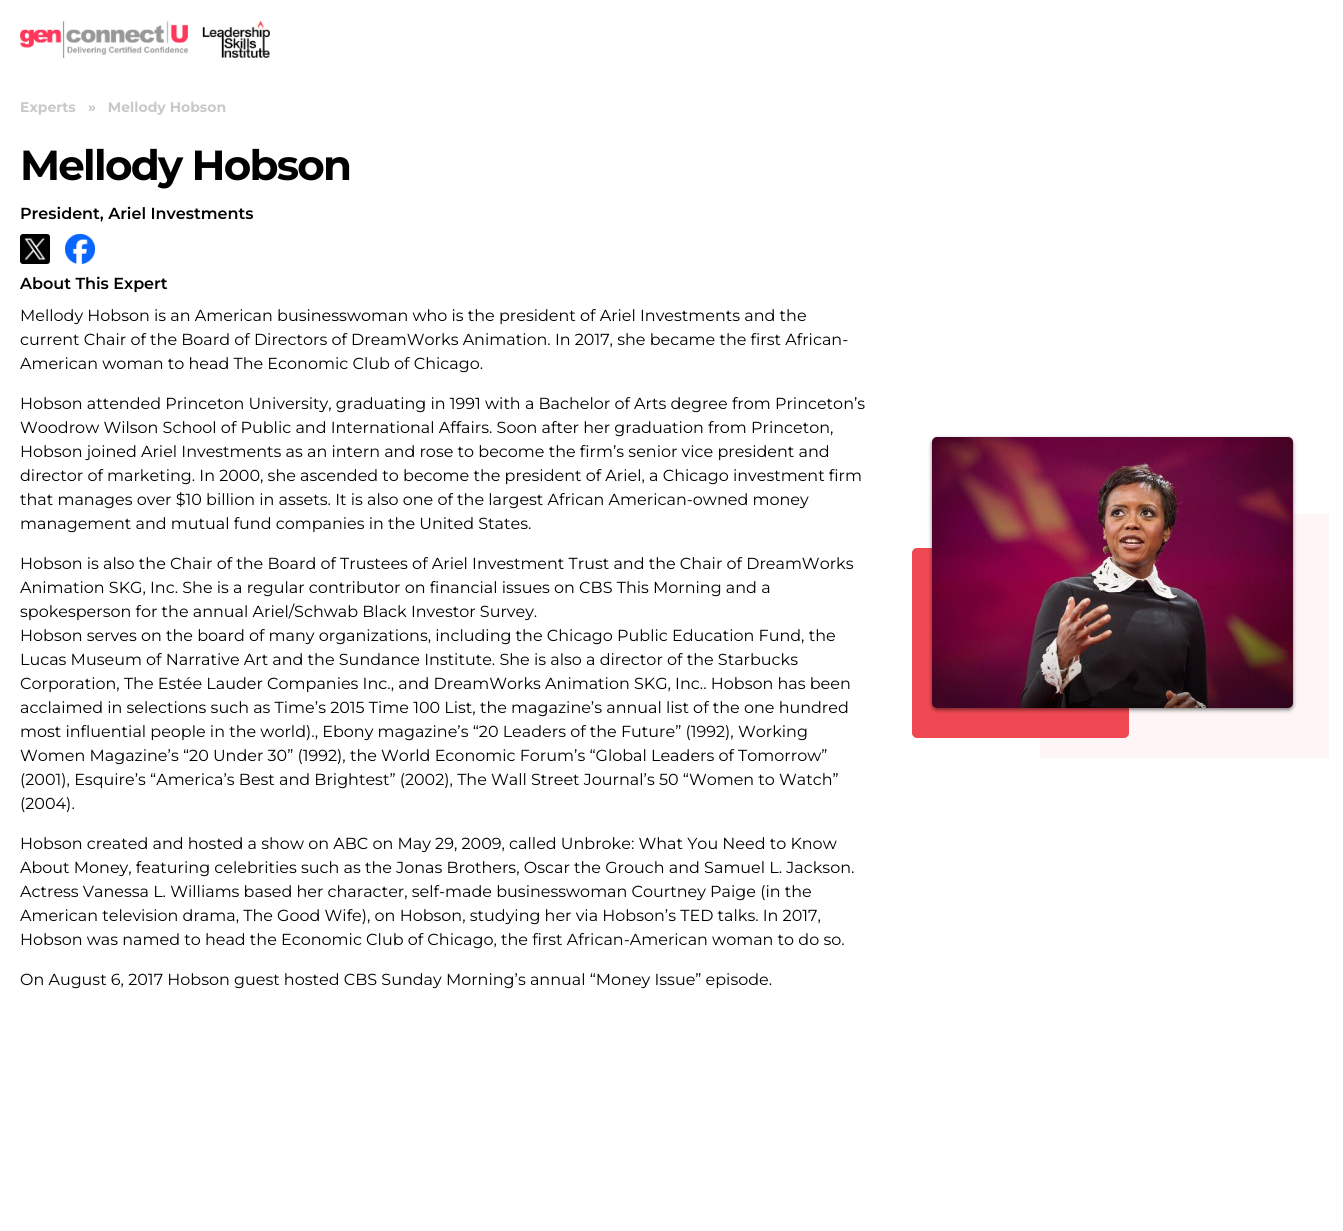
import math
import cairo


def use_color(cr, r, g, b):
  cr.set_source_rgb(r / 255, g / 255, b / 255)

def text(cr, x, y, s, family, size, color, bold=False, italic=False):
  cr.select_font_face(family, cairo.FONT_SLANT_ITALIC if italic else cairo.FONT_SLANT_NORMAL, cairo.FONT_WEIGHT_BOLD if bold else cairo.FONT_WEIGHT_NORMAL)
  cr.set_font_size(size)
  use_color(cr, *color)
  cr.move_to(x, y)
  cr.show_text(s)

def spaced_text(cr, x, y, s, letter, word):
  cr.move_to(x, y)
  for ch in s:
    cr.show_text(ch)
    cr.rel_move_to(letter + word * (ch == ' '), 0)

def box(cr, x, y, w, h, *color):
  use_color(cr, *color)
  cr.rectangle(x, y, w, h)
  cr.fill()

def round_rect(cr, x, y, w, h, r):
  cr.new_sub_path()
  for i, (u, v) in enumerate([(x + w - r, y + h - r), (x + r, y + h - r), (x + r, y + r), (x + w - r, y + r)]):
    cr.arc(u, v, r, i * math.pi / 2, (i + 1) * math.pi / 2)
  cr.close_path()

def shadow(cr, x, y, w, h, r, blur, alpha):
  cr.push_group_with_content(cairo.CONTENT_ALPHA)
  cr.set_operator(cairo.OPERATOR_SOURCE)
  for i in range(15, -16, -2):
    e = blur * i / 6
    if min(w, h) + 2 * e > 0:
      cr.set_source_rgba(0, 0, 0, alpha * math.erfc((i - 1) / 8.5) / 2)
      round_rect(cr, x - e, y - e, w + 2 * e, h + 2 * e, max(0, min(r + e + blur * .6, min(w, h) / 2 + e)))
      cr.fill()
  cr.mask(cr.pop_group())

def picture(cr, path, x, y, w, h):
  cr.save()
  cr.set_source_surface(cairo.ImageSurface.create_from_png(path), x, y)
  cr.rectangle(x, y, w, h)
  cr.fill()
  cr.restore()

def draw(cr):
  use_color(cr, 255, 255, 255)
  cr.paint()
  picture(cr, "img_01.png", 20, 20, 250, 38)
  picture(cr, "img_02.png", 20, 234, 30, 30)
  picture(cr, "img_03.png", 65, 234, 30, 30)
  box(cr, 1040, 514, 289, 244, 254, 246, 246)
  use_color(cr, 239, 72, 83)
  round_rect(cr, 912, 548, 217, 190, 5)
  cr.fill()
  use_color(cr, 0, 0, 0)
  shadow(cr, 932, 439, 361, 271, 5, 2, 0.5)
  picture(cr, "img_04.png", 932, 437, 361, 271)
  text(cr, 20, 112, "Experts", "Montserrat", 14, (201, 201, 201), bold=True)
  text(cr, 88, 112, "»   Mellody Hobson", "Montserrat", 14, (201, 201, 201), bold=True)
  cr.set_font_size(42)
  use_color(cr, 0, 0, 0)
  spaced_text(cr, 20, 180, "Mellody Hobson", -1.75, 0)
  text(cr, 20, 219, "President, Ariel Investments", "Montserrat SemiBold", 16, (0, 0, 0))
  text(cr, 20, 289, "About This Expert", "Montserrat SemiBold", 16, (0, 0, 0))
  text(cr, 20, 321, "Mellody Hobson is an American businesswoman who is the president of Ariel Investments and the", "Montserrat", 16, (0, 0, 0))
  text(cr, 20, 345, "current Chair of the Board of Directors of DreamWorks Animation. In 2017, she became the first African-", "Montserrat", 16, (0, 0, 0))
  text(cr, 20, 369, "American woman to head The Economic Club of Chicago.", "Montserrat", 16, (0, 0, 0))
  text(cr, 20, 409, "Hobson attended Princeton University, graduating in 1991 with a Bachelor of Arts degree from Princeton’s", "Montserrat", 16, (0, 0, 0))
  text(cr, 20, 433, "Woodrow Wilson School of Public and International Affairs. Soon after her graduation from Princeton,", "Montserrat", 16, (0, 0, 0))
  text(cr, 20, 457, "Hobson joined Ariel Investments as an intern and rose to become the firm’s senior vice president and", "Montserrat", 16, (0, 0, 0))
  text(cr, 20, 481, "director of marketing. In 2000, she ascended to become the president of Ariel, a Chicago investment firm", "Montserrat", 16, (0, 0, 0))
  text(cr, 20, 505, "that manages over $10 billion in assets. It is also one of the largest African American-owned money", "Montserrat", 16, (0, 0, 0))
  text(cr, 20, 529, "management and mutual fund companies in the United States.", "Montserrat", 16, (0, 0, 0))
  text(cr, 20, 569, "Hobson is also the Chair of the Board of Trustees of Ariel Investment Trust and the Chair of DreamWorks", "Montserrat", 16, (0, 0, 0))
  text(cr, 20, 593, "Animation SKG, Inc. She is a regular contributor on financial issues on CBS This Morning and a", "Montserrat", 16, (0, 0, 0))
  text(cr, 20, 617, "spokesperson for the annual Ariel/Schwab Black Investor Survey.", "Montserrat", 16, (0, 0, 0))
  text(cr, 20, 641, "Hobson serves on the board of many organizations, including the Chicago Public Education Fund, the", "Montserrat", 16, (0, 0, 0))
  text(cr, 20, 665, "Lucas Museum of Narrative Art and the Sundance Institute. She is also a director of the Starbucks", "Montserrat", 16, (0, 0, 0))
  text(cr, 20, 689, "Corporation, The Estée Lauder Companies Inc., and DreamWorks Animation SKG, Inc.. Hobson has been", "Montserrat", 16, (0, 0, 0))
  text(cr, 20, 713, "acclaimed in selections such as Time’s 2015 Time 100 List, the magazine’s annual list of the one hundred", "Montserrat", 16, (0, 0, 0))
  text(cr, 20, 737, "most influential people in the world)., Ebony magazine’s “20 Leaders of the Future” (1992), Working", "Montserrat", 16, (0, 0, 0))
  text(cr, 20, 761, "Women Magazine’s “20 Under 30” (1992), the World Economic Forum’s “Global Leaders of Tomorrow”", "Montserrat", 16, (0, 0, 0))
  text(cr, 20, 785, "(2001), Esquire’s “America’s Best and Brightest” (2002), The Wall Street Journal’s 50 “Women to Watch”", "Montserrat", 16, (0, 0, 0))
  text(cr, 20, 809, "(2004).", "Montserrat", 16, (0, 0, 0))
  text(cr, 20, 849, "Hobson created and hosted a show on ABC on May 29, 2009, called Unbroke: What You Need to Know", "Montserrat", 16, (0, 0, 0))
  text(cr, 20, 873, "About Money, featuring celebrities such as the Jonas Brothers, Oscar the Grouch and Samuel L. Jackson.", "Montserrat", 16, (0, 0, 0))
  text(cr, 20, 897, "Actress Vanessa L. Williams based her character, self-made businesswoman Courtney Paige (in the", "Montserrat", 16, (0, 0, 0))
  text(cr, 20, 921, "American television drama, The Good Wife), on Hobson, studying her via Hobson’s TED talks. In 2017,", "Montserrat", 16, (0, 0, 0))
  text(cr, 20, 945, "Hobson was named to head the Economic Club of Chicago, the first African-American woman to do so.", "Montserrat", 16, (0, 0, 0))
  text(cr, 20, 985, "On August 6, 2017 Hobson guest hosted CBS Sunday Morning’s annual “Money Issue” episode.", "Montserrat", 16, (0, 0, 0))


surface = cairo.ImageSurface(cairo.FORMAT_RGB24, 1343, 1231)
cr = cairo.Context(surface)
options = cairo.FontOptions()
options.set_hint_metrics(cairo.HINT_METRICS_OFF)
options.set_hint_style(cairo.HINT_STYLE_NONE)
cr.set_font_options(options)
cr.set_miter_limit(4)
draw(cr)
surface.write_to_png("out.png")
